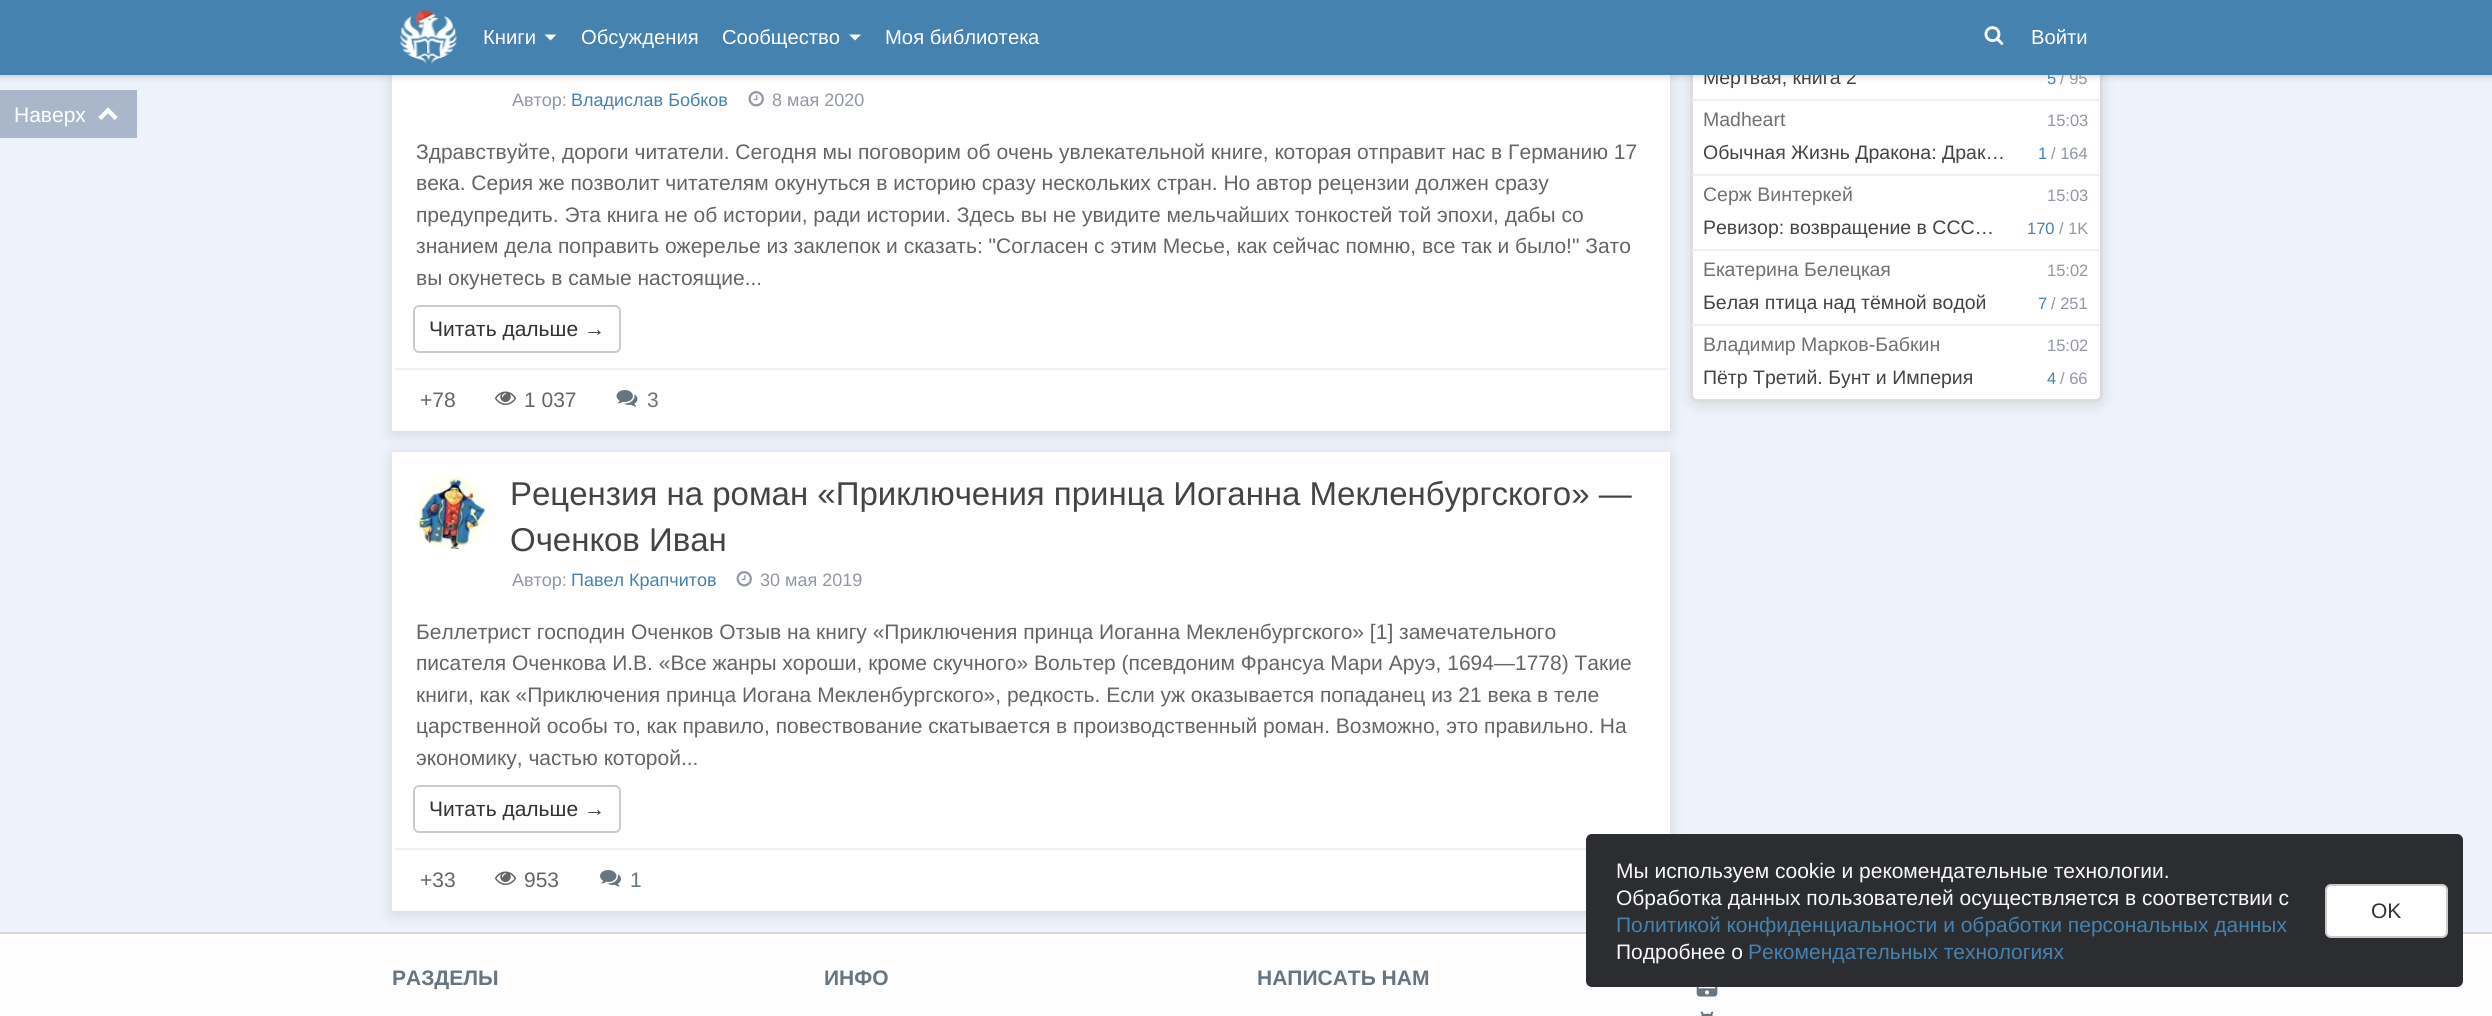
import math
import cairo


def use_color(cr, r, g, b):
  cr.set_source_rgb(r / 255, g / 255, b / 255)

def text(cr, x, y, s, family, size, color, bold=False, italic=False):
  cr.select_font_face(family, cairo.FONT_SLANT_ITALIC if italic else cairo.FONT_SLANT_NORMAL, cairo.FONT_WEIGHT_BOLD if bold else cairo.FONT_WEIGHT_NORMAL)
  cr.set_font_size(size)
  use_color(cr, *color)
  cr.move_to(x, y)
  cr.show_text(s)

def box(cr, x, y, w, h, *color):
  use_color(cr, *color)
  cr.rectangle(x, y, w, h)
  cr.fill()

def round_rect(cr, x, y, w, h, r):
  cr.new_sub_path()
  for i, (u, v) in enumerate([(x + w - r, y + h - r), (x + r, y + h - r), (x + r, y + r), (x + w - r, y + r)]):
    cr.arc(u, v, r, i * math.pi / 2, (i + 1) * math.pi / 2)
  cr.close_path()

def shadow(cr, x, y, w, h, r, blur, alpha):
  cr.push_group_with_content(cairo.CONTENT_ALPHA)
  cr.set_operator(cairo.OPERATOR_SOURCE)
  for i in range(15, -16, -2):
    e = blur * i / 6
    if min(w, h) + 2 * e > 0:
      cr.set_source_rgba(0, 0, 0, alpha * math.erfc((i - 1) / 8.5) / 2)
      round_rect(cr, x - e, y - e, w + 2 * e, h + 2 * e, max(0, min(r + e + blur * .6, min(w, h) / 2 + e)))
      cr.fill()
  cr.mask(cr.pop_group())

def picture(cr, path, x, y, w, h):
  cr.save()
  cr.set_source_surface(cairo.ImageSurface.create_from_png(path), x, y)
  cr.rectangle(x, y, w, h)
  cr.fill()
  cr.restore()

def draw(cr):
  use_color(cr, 238, 243, 251)
  cr.paint()
  use_color(cr, 0, 0, 0)
  shadow(cr, 392, -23, 1278, 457, 0, 7.5, 0.12)
  box(cr, 392, 75, 1278, 356, 255, 255, 255)
  use_color(cr, 0, 0, 0)
  shadow(cr, 1691, -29, 411, 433, 6, 7.5, 0.12)
  shadow(cr, 1691, -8, 411, 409, 6, 0.5, 0.12)
  use_color(cr, 255, 255, 255)
  round_rect(cr, 1692, -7, 409, 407, 5)
  cr.fill_preserve()
  use_color(cr, 221, 221, 221)
  cr.stroke()
  use_color(cr, 0, 0, 0)
  shadow(cr, 0, 0, 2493, 75, 0, 4, 0.25)
  box(cr, 0, 90, 137, 48, 170, 183, 203)
  picture(cr, "img_03.png", 98, 107, 20, 13)
  picture(cr, "img_04.png", 748, 91, 16, 16)
  round_rect(cr, 414, 306, 206, 46, 5)
  use_color(cr, 204, 204, 204)
  cr.stroke()
  box(cr, 395, 368, 1272, 2, 240, 240, 240)
  picture(cr, "img_05.png", 495, 391, 21, 14)
  picture(cr, "img_06.png", 616, 390, 22, 17)
  use_color(cr, 0, 0, 0)
  shadow(cr, 392, 455, 1278, 459, 0, 7.5, 0.12)
  box(cr, 392, 452, 1278, 459, 255, 255, 255)
  picture(cr, "img_07.png", 414, 475, 75, 75)
  picture(cr, "img_04.png", 736, 571, 16, 16)
  round_rect(cr, 414, 786, 206, 46, 5)
  use_color(cr, 204, 204, 204)
  cr.stroke()
  box(cr, 395, 848, 1191, 2, 240, 240, 240)
  picture(cr, "img_05.png", 495, 871, 21, 14)
  picture(cr, "img_08.png", 600, 870, 21, 17)
  box(cr, 1692, 99, 408, 2, 236, 239, 243)
  box(cr, 1692, 174, 408, 2, 236, 239, 243)
  box(cr, 1692, 249, 408, 2, 236, 239, 243)
  box(cr, 1692, 324, 408, 2, 236, 239, 243)
  box(cr, 0, 934, 2492, 82, 254, 254, 254)
  box(cr, 0, 932, 2492, 2, 216, 216, 216)
  use_color(cr, 43, 45, 49)
  round_rect(cr, 1586, 834, 877, 153, 6)
  cr.fill()
  use_color(cr, 255, 255, 255)
  round_rect(cr, 2326, 885, 121, 52, 5)
  cr.fill_preserve()
  use_color(cr, 204, 204, 204)
  cr.stroke()
  picture(cr, "img_09.png", 1696, 987, 22, 10)
  picture(cr, "img_10.png", 1700, 1011, 14, 5)
  text(cr, 14, 122, "Наверх", "Liberation Sans", 21, (255, 255, 255))
  text(cr, 512, 106, "Автор:", "Liberation Sans", 18, (145, 151, 163))
  text(cr, 571, 106, "Владислав Бобков", "Liberation Sans", 18, (69, 130, 175))
  text(cr, 772, 106, "8 мая 2020", "Liberation Sans", 18, (145, 151, 163))
  text(cr, 416, 159, "Здравствуйте, дороги читатели. Сегодня мы поговорим об очень увлекательной книге, которая отправит нас в Германию 17", "Liberation Sans", 21, (101, 101, 101))
  text(cr, 416, 190, "века. Серия же позволит читателям окунуться в историю сразу нескольких стран. Но автор рецензии должен сразу", "Liberation Sans", 21, (101, 101, 101))
  text(cr, 416, 222, "предупредить. Эта книга не об истории, ради истории. Здесь вы не увидите мельчайших тонкостей той эпохи, дабы со", "Liberation Sans", 21, (101, 101, 101))
  text(cr, 416, 253, "знанием дела поправить ожерелье из заклепок и сказать: \"Согласен с этим Месье, как сейчас помню, все так и было!\" Зато", "Liberation Sans", 21, (101, 101, 101))
  text(cr, 416, 285, "вы окунетесь в самые настоящие...", "Liberation Sans", 21, (101, 101, 101))
  text(cr, 429, 336, "Читать дальше →", "Liberation Sans", 21, (51, 51, 51))
  text(cr, 420, 407, "+78", "Liberation Sans", 21, (101, 101, 101))
  text(cr, 524, 407, "1 037", "Liberation Sans", 21, (101, 101, 101))
  text(cr, 647, 407, "3", "Liberation Sans", 21, (102, 117, 127))
  text(cr, 510, 505, "Рецензия на роман «Приключения принца Иоганна Мекленбургского» —", "Liberation Sans", 33, (68, 68, 68))
  text(cr, 510, 551, "Оченков Иван", "Liberation Sans", 33, (68, 68, 68))
  text(cr, 512, 586, "Автор:", "Liberation Sans", 18, (145, 151, 163))
  text(cr, 571, 586, "Павел Крапчитов", "Liberation Sans", 18, (69, 130, 175))
  text(cr, 760, 586, "30 мая 2019", "Liberation Sans", 18, (145, 151, 163))
  text(cr, 416, 639, "Беллетрист господин Оченков Отзыв на книгу «Приключения принца Иоганна Мекленбургского» [1] замечательного", "Liberation Sans", 21, (101, 101, 101))
  text(cr, 416, 670, "писателя Оченкова И.В. «Все жанры хороши, кроме скучного» Вольтер (псевдоним Франсуа Мари Аруэ, 1694—1778) Такие", "Liberation Sans", 21, (101, 101, 101))
  text(cr, 416, 702, "книги, как «Приключения принца Иогана Мекленбургского», редкость. Если уж оказывается попаданец из 21 века в теле", "Liberation Sans", 21, (101, 101, 101))
  text(cr, 416, 733, "царственной особы то, как правило, повествование скатывается в производственный роман. Возможно, это правильно. На", "Liberation Sans", 21, (101, 101, 101))
  text(cr, 416, 765, "экономику, частью которой...", "Liberation Sans", 21, (101, 101, 101))
  text(cr, 429, 816, "Читать дальше →", "Liberation Sans", 21, (51, 51, 51))
  text(cr, 420, 887, "+33", "Liberation Sans", 21, (101, 101, 101))
  text(cr, 524, 887, "953", "Liberation Sans", 21, (101, 101, 101))
  text(cr, 630, 887, "1", "Liberation Sans", 21, (102, 117, 127))
  text(cr, 1703, 84, "Мёртвая, книга 2", "Liberation Sans", 19.5, (68, 68, 68))
  text(cr, 2047, 84, "5", "Liberation Sans", 16.5, (69, 130, 175))
  text(cr, 2060, 84, "/ 95", "Liberation Sans", 16.5, (145, 151, 163))
  box(cr, 0, 0, 2492, 75, 69, 130, 175)
  picture(cr, "img_01.png", 400, 10, 58, 54)
  use_color(cr, 255, 255, 255)
  cr.new_path()
  cr.move_to(849, 34.5)
  cr.line_to(861, 34.5)
  cr.line_to(855, 40.5)
  cr.close_path()
  cr.fill()
  text(cr, 722, 44, "Сообщество", "Liberation Sans", 20.25, (255, 255, 255))
  cr.new_path()
  cr.move_to(544.5, 34.5)
  cr.line_to(556.5, 34.5)
  cr.line_to(550.5, 40.5)
  cr.close_path()
  cr.fill()
  text(cr, 483, 44, "Книги", "Liberation Sans", 20.25, (255, 255, 255))
  text(cr, 2031, 44, "Войти", "Liberation Sans", 20.25, (255, 255, 255))
  picture(cr, "img_02.png", 1984, 26, 20, 19)
  text(cr, 885, 44, "Моя библиотека", "Liberation Sans", 20.25, (255, 255, 255))
  text(cr, 581, 44, "Обсуждения", "Liberation Sans", 20.25, (255, 255, 255))
  text(cr, 1703, 126, "Madheart", "Liberation Sans", 19.5, (113, 113, 113))
  text(cr, 1703, 159, "Обычная Жизнь Дракона: Драк…", "Liberation Sans", 19.5, (68, 68, 68))
  text(cr, 2047, 126, "15:03", "Liberation Sans", 16.5, (145, 151, 163))
  text(cr, 2038, 159, "1", "Liberation Sans", 16.5, (69, 130, 175))
  text(cr, 2051, 159, "/ 164", "Liberation Sans", 16.5, (145, 151, 163))
  text(cr, 1703, 201, "Серж Винтеркей", "Liberation Sans", 19.5, (113, 113, 113))
  text(cr, 1703, 234, "Ревизор: возвращение в ССС…", "Liberation Sans", 19.5, (68, 68, 68))
  text(cr, 2047, 201, "15:03", "Liberation Sans", 16.5, (145, 151, 163))
  text(cr, 2027, 234, "170", "Liberation Sans", 16.5, (69, 130, 175))
  text(cr, 2059, 234, "/ 1K", "Liberation Sans", 16.5, (145, 151, 163))
  text(cr, 1703, 276, "Екатерина Белецкая", "Liberation Sans", 19.5, (113, 113, 113))
  text(cr, 1703, 309, "Белая птица над тёмной водой", "Liberation Sans", 19.5, (68, 68, 68))
  text(cr, 2047, 276, "15:02", "Liberation Sans", 16.5, (145, 151, 163))
  text(cr, 2038, 309, "7", "Liberation Sans", 16.5, (69, 130, 175))
  text(cr, 2051, 309, "/ 251", "Liberation Sans", 16.5, (145, 151, 163))
  text(cr, 1703, 351, "Владимир Марков-Бабкин", "Liberation Sans", 19.5, (113, 113, 113))
  text(cr, 1703, 384, "Пётр Третий. Бунт и Империя", "Liberation Sans", 19.5, (68, 68, 68))
  text(cr, 2047, 351, "15:02", "Liberation Sans", 16.5, (145, 151, 163))
  text(cr, 2047, 384, "4", "Liberation Sans", 16.5, (69, 130, 175))
  text(cr, 2060, 384, "/ 66", "Liberation Sans", 16.5, (145, 151, 163))
  text(cr, 1616, 878, "Мы используем cookie и рекомендательные технологии.", "Liberation Sans", 21, (249, 249, 249))
  text(cr, 1616, 905, "Обработка данных пользователей осуществляется в соответствии с", "Liberation Sans", 21, (249, 249, 249))
  text(cr, 1616, 932, "Политикой конфиденциальности и обработки персональных данных", "Liberation Sans", 21, (69, 130, 175))
  text(cr, 1616, 959, "Подробнее о", "Liberation Sans", 21, (249, 249, 249))
  text(cr, 1748, 959, "Рекомендательных технологиях", "Liberation Sans", 21, (69, 130, 175))
  text(cr, 2371, 918, "OK", "Liberation Sans", 21, (51, 51, 51))
  text(cr, 392, 985, "РАЗДЕЛЫ", "Liberation Sans", 21, (102, 117, 127), bold=True)
  text(cr, 824, 985, "ИНФО", "Liberation Sans", 21, (102, 117, 127), bold=True)
  text(cr, 1257, 985, "НАПИСАТЬ НАМ", "Liberation Sans", 21, (102, 117, 127), bold=True)


surface = cairo.ImageSurface(cairo.FORMAT_RGB24, 2492, 1016)
cr = cairo.Context(surface)
options = cairo.FontOptions()
options.set_hint_metrics(cairo.HINT_METRICS_OFF)
options.set_hint_style(cairo.HINT_STYLE_NONE)
cr.set_font_options(options)
cr.set_miter_limit(4)
draw(cr)
surface.write_to_png("out.png")
